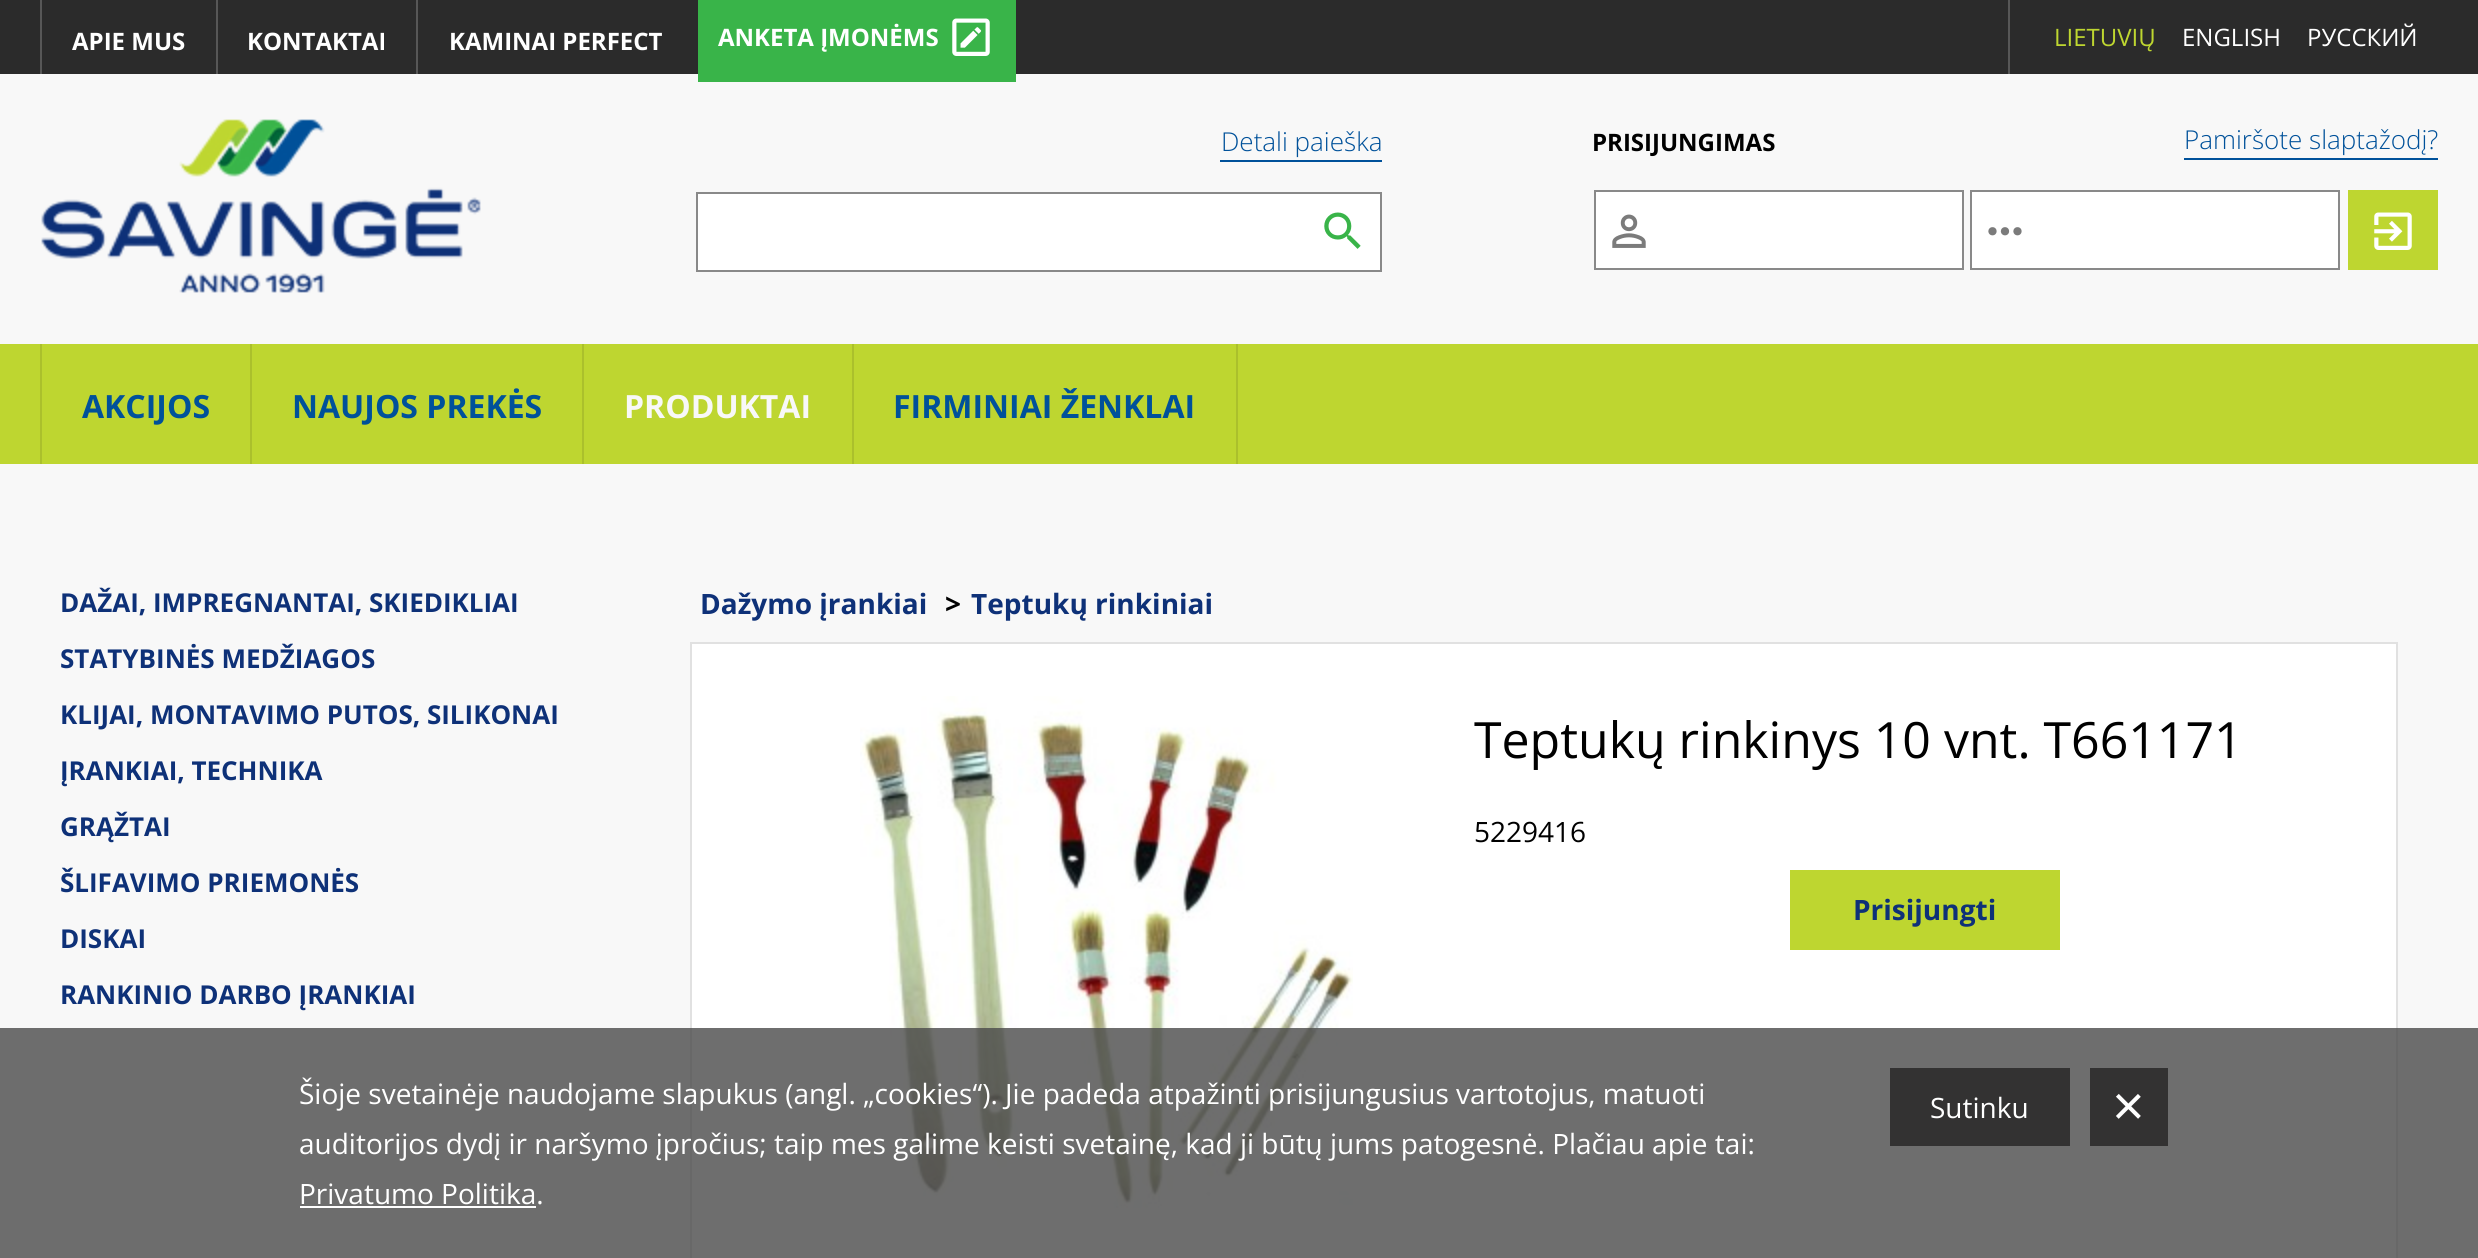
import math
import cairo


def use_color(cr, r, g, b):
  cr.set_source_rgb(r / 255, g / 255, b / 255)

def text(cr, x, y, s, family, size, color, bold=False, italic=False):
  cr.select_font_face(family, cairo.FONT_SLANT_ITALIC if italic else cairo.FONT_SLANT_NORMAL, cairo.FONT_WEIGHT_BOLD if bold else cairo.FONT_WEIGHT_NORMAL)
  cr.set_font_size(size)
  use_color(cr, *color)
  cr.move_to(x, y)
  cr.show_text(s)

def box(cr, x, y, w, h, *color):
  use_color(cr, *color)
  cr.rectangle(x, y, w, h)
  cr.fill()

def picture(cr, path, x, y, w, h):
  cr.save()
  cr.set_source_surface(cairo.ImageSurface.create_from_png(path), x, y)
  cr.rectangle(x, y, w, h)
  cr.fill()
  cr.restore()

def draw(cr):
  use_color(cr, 248, 248, 248)
  cr.paint()
  box(cr, 0, 0, 2478, 74, 43, 43, 43)
  box(cr, 40, 0, 2, 74, 87, 87, 87)
  box(cr, 216, 0, 2, 74, 87, 87, 87)
  box(cr, 416, 0, 2, 74, 87, 87, 87)
  box(cr, 698, 0, 318, 82, 57, 180, 73)
  picture(cr, "img_01.png", 952, 18, 38, 38)
  box(cr, 2008, 0, 2, 74, 87, 87, 87)
  picture(cr, "img_02.png", 41, 119, 440, 174)
  box(cr, 1220, 160, 162, 2, 0, 81, 154)
  use_color(cr, 255, 255, 255)
  cr.rectangle(697, 193, 684, 78)
  cr.fill_preserve()
  use_color(cr, 137, 137, 137)
  cr.stroke()
  picture(cr, "img_03.png", 1324, 212, 37, 37)
  box(cr, 2184, 158, 254, 2, 0, 81, 154)
  use_color(cr, 255, 255, 255)
  cr.rectangle(1595, 191, 368, 78)
  cr.fill_preserve()
  use_color(cr, 137, 137, 137)
  cr.stroke()
  picture(cr, "img_04.png", 1612, 214, 34, 34)
  use_color(cr, 255, 255, 255)
  cr.rectangle(1971, 191, 368, 78)
  cr.fill_preserve()
  use_color(cr, 137, 137, 137)
  cr.stroke()
  picture(cr, "img_05.png", 1988, 227, 34, 9)
  box(cr, 2348, 190, 90, 80, 190, 214, 48)
  picture(cr, "img_06.png", 2374, 212, 38, 38)
  box(cr, 0, 344, 2478, 120, 190, 214, 48)
  box(cr, 40, 344, 2, 120, 171, 192, 44)
  box(cr, 250, 344, 2, 120, 171, 192, 44)
  box(cr, 582, 344, 2, 120, 171, 192, 44)
  box(cr, 852, 344, 2, 120, 171, 192, 44)
  box(cr, 1236, 344, 2, 120, 171, 192, 44)
  use_color(cr, 255, 255, 255)
  cr.rectangle(691, 643, 1706, 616)
  cr.fill_preserve()
  use_color(cr, 225, 225, 225)
  cr.stroke()
  picture(cr, "img_07.png", 860, 696, 493, 512)
  box(cr, 1790, 870, 270, 80, 190, 214, 48)
  cr.set_source_rgba(0.29, 0.29, 0.29, 0.8)
  cr.rectangle(0, 1028, 2478, 230)
  cr.fill()
  box(cr, 300, 1206, 236, 2, 255, 255, 255)
  box(cr, 1890, 1068, 180, 78, 51, 50, 50)
  box(cr, 2090, 1068, 78, 78, 51, 50, 50)
  text(cr, 72, 50, "APIE MUS", "Open Sans", 24, (255, 255, 255), bold=True)
  text(cr, 247, 50, "KONTAKTAI", "Open Sans", 24, (255, 255, 255), bold=True)
  text(cr, 449, 50, "KAMINAI PERFECT", "Open Sans", 24, (255, 255, 255), bold=True)
  text(cr, 718, 46, "ANKETA ĮMONĖMS", "Open Sans", 24, (255, 255, 255), bold=True)
  text(cr, 2054, 46, "LIETUVIŲ", "Open Sans", 24, (190, 214, 48))
  text(cr, 2182, 46, "ENGLISH", "Open Sans", 24, (255, 255, 255))
  text(cr, 2307, 46, "PУССКИЙ", "Open Sans", 24, (255, 255, 255))
  text(cr, 1221, 151, "Detali paieška", "Open Sans Light", 26, (0, 81, 154))
  text(cr, 1592, 151, "PRISIJUNGIMAS", "Open Sans", 24, (0, 0, 0), bold=True)
  text(cr, 2184, 149, "Pamiršote slaptažodį?", "Open Sans Light", 26, (0, 81, 154))
  text(cr, 82, 418, "AKCIJOS", "Open Sans", 32, (0, 81, 154), bold=True)
  text(cr, 292, 418, "NAUJOS PREKĖS", "Open Sans", 32, (0, 81, 154), bold=True)
  text(cr, 624, 418, "PRODUKTAI", "Open Sans", 32, (248, 248, 248), bold=True)
  text(cr, 893, 418, "FIRMINIAI ŽENKLAI", "Open Sans", 32, (0, 81, 154), bold=True)
  text(cr, 60, 612, "DAŽAI, IMPREGNANTAI, SKIEDIKLIAI", "Open Sans", 26, (14, 49, 120), bold=True)
  text(cr, 60, 668, "STATYBINĖS MEDŽIAGOS", "Open Sans", 26, (14, 49, 120), bold=True)
  text(cr, 60, 724, "KLIJAI, MONTAVIMO PUTOS, SILIKONAI", "Open Sans", 26, (14, 49, 120), bold=True)
  text(cr, 60, 780, "ĮRANKIAI, TECHNIKA", "Open Sans", 26, (14, 49, 120), bold=True)
  text(cr, 60, 836, "GRĄŽTAI", "Open Sans", 26, (14, 49, 120), bold=True)
  text(cr, 60, 892, "ŠLIFAVIMO PRIEMONĖS", "Open Sans", 26, (14, 49, 120), bold=True)
  text(cr, 60, 948, "DISKAI", "Open Sans", 26, (14, 49, 120), bold=True)
  text(cr, 60, 1004, "RANKINIO DARBO ĮRANKIAI", "Open Sans", 26, (14, 49, 120), bold=True)
  text(cr, 700, 614, "Dažymo įrankiai", "Open Sans", 28, (14, 49, 120), bold=True)
  text(cr, 945, 614, ">", "Open Sans", 28, (0, 0, 0), bold=True)
  text(cr, 971, 614, "Teptukų rinkiniai", "Open Sans", 28, (14, 49, 120), bold=True)
  text(cr, 1474, 758, "Teptukų rinkinys 10 vnt. T661171", "Open Sans", 50, (0, 0, 0))
  text(cr, 1474, 842, "5229416", "Open Sans", 28, (0, 0, 0))
  text(cr, 1853, 920, "Prisijungti", "Open Sans", 28, (14, 49, 120), bold=True)
  text(cr, 299, 1104, "Šioje svetainėje naudojame slapukus (angl. „cookies“). Jie padeda atpažinti prisijungusius vartotojus, matuoti", "Open Sans", 28, (255, 255, 255))
  text(cr, 299, 1154, "auditorijos dydį ir naršymo įpročius; taip mes galime keisti svetainę, kad ji būtų jums patogesnė. Plačiau apie tai:", "Open Sans", 28, (255, 255, 255))
  text(cr, 299, 1204, "Privatumo Politika.", "Open Sans", 28, (255, 255, 255))
  text(cr, 1930, 1118, "Sutinku", "Open Sans", 28, (255, 255, 255))
  text(cr, 2112, 1125, "×", "Liberation Sans", 56, (255, 255, 255))


surface = cairo.ImageSurface(cairo.FORMAT_RGB24, 2478, 1258)
cr = cairo.Context(surface)
options = cairo.FontOptions()
options.set_hint_metrics(cairo.HINT_METRICS_OFF)
options.set_hint_style(cairo.HINT_STYLE_NONE)
cr.set_font_options(options)
cr.set_miter_limit(4)
draw(cr)
surface.write_to_png("out.png")
